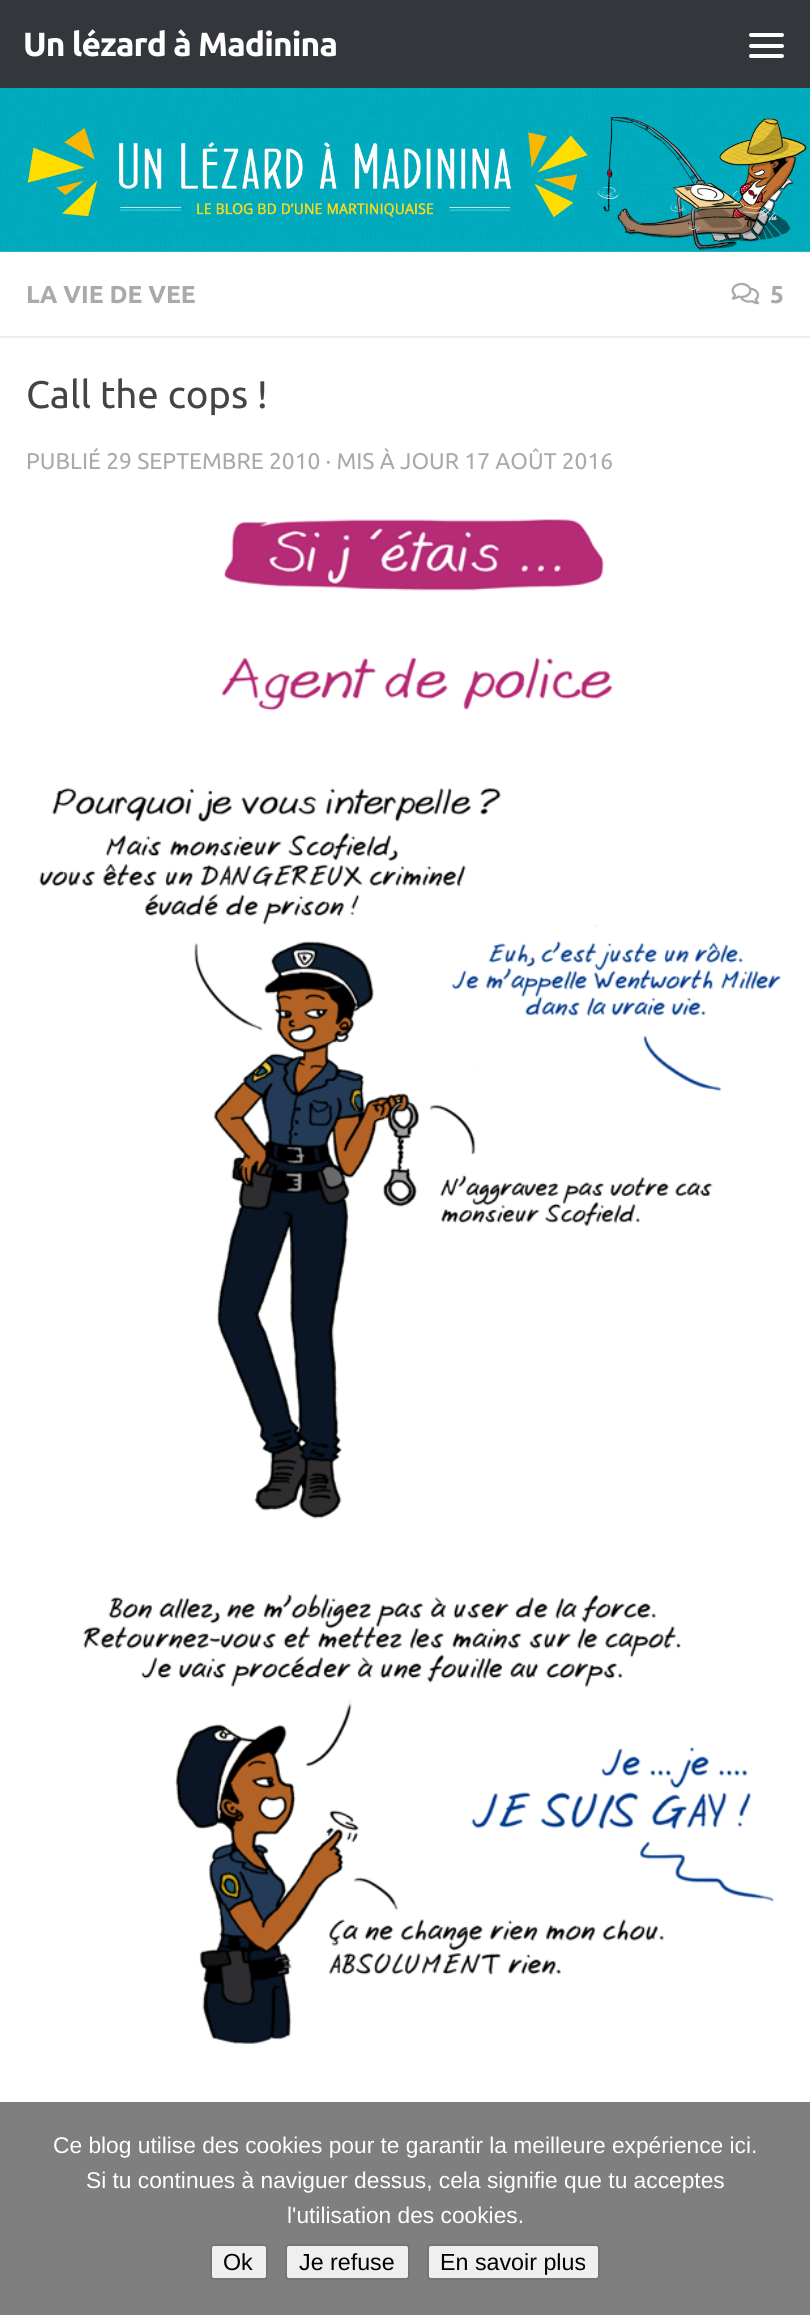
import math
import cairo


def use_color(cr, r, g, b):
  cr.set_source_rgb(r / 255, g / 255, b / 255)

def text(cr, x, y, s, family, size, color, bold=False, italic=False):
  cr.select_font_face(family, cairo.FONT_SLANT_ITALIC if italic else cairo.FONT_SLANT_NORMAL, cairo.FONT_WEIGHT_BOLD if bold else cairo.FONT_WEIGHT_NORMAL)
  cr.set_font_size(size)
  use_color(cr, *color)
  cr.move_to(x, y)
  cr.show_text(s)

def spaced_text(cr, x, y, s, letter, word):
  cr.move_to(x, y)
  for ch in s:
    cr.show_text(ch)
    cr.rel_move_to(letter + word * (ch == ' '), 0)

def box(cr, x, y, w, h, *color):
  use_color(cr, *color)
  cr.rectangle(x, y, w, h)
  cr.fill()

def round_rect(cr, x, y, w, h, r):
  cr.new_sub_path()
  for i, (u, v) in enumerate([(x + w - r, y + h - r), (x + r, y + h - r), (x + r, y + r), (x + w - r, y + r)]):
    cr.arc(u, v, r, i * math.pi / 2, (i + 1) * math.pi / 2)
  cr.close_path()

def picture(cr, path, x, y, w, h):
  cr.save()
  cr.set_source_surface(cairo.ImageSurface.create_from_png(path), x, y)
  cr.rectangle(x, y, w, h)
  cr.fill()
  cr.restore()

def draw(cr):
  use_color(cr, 255, 255, 255)
  cr.paint()
  box(cr, 0, 0, 810, 88, 51, 54, 59)
  use_color(cr, 255, 255, 255)
  round_rect(cr, 749, 33, 35, 4, 2)
  cr.fill()
  round_rect(cr, 749, 44, 35, 4, 2)
  cr.fill()
  round_rect(cr, 749, 54, 35, 4, 2)
  cr.fill()
  picture(cr, "img_01.png", 0, 88, 810, 164)
  box(cr, 0, 336, 810, 2, 238, 238, 238)
  picture(cr, "img_02.png", 731, 282, 29, 23)
  picture(cr, "img_03.png", 39, 519, 742, 1000)
  picture(cr, "img_04.png", 83, 1593, 691, 451)
  box(cr, 0, 2102, 810, 213, 127, 127, 127)
  use_color(cr, 239, 239, 239)
  round_rect(cr, 211, 2245, 56, 34, 3)
  cr.fill_preserve()
  use_color(cr, 118, 118, 118)
  cr.stroke()
  use_color(cr, 239, 239, 239)
  round_rect(cr, 286, 2245, 123, 34, 3)
  cr.fill_preserve()
  use_color(cr, 118, 118, 118)
  cr.stroke()
  use_color(cr, 239, 239, 239)
  round_rect(cr, 428, 2245, 171, 34, 3)
  cr.fill_preserve()
  use_color(cr, 118, 118, 118)
  cr.stroke()
  cr.select_font_face("Ubuntu", cairo.FONT_SLANT_NORMAL, cairo.FONT_WEIGHT_BOLD)
  cr.set_font_size(33.5)
  use_color(cr, 255, 255, 255)
  spaced_text(cr, 23, 56, "Un lézard à Madinina", -0.9, 0)
  text(cr, 26, 303, "LA VIE DE VEE", "Ubuntu", 24.5, (170, 170, 170), bold=True)
  text(cr, 770, 303, "5", "Ubuntu", 24.5, (170, 170, 170), bold=True)
  text(cr, 26, 408, "Call the cops !", "Ubuntu", 38.5, (68, 68, 68))
  text(cr, 26, 469, "PUBLIÉ 29 SEPTEMBRE 2010 · MIS À JOUR 17 AOÛT 2016", "Ubuntu", 22.75, (170, 170, 170))
  text(cr, 53, 2153, "Ce blog utilise des cookies pour te garantir la meilleure expérience ici.", "Liberation Sans", 22.75, (255, 255, 255))
  text(cr, 86, 2188, "Si tu continues à naviguer dessus, cela signifie que tu acceptes", "Liberation Sans", 22.75, (255, 255, 255))
  text(cr, 287, 2223, "l'utilisation des cookies.", "Liberation Sans", 22.75, (255, 255, 255))
  text(cr, 223, 2270, "Ok", "Liberation Sans", 23.25, (0, 0, 0))
  text(cr, 299, 2270, "Je refuse", "Liberation Sans", 23.25, (0, 0, 0))
  text(cr, 440, 2270, "En savoir plus", "Liberation Sans", 23.25, (0, 0, 0))


surface = cairo.ImageSurface(cairo.FORMAT_RGB24, 810, 2315)
cr = cairo.Context(surface)
options = cairo.FontOptions()
options.set_hint_metrics(cairo.HINT_METRICS_OFF)
options.set_hint_style(cairo.HINT_STYLE_NONE)
cr.set_font_options(options)
cr.set_miter_limit(4)
draw(cr)
surface.write_to_png("out.png")
